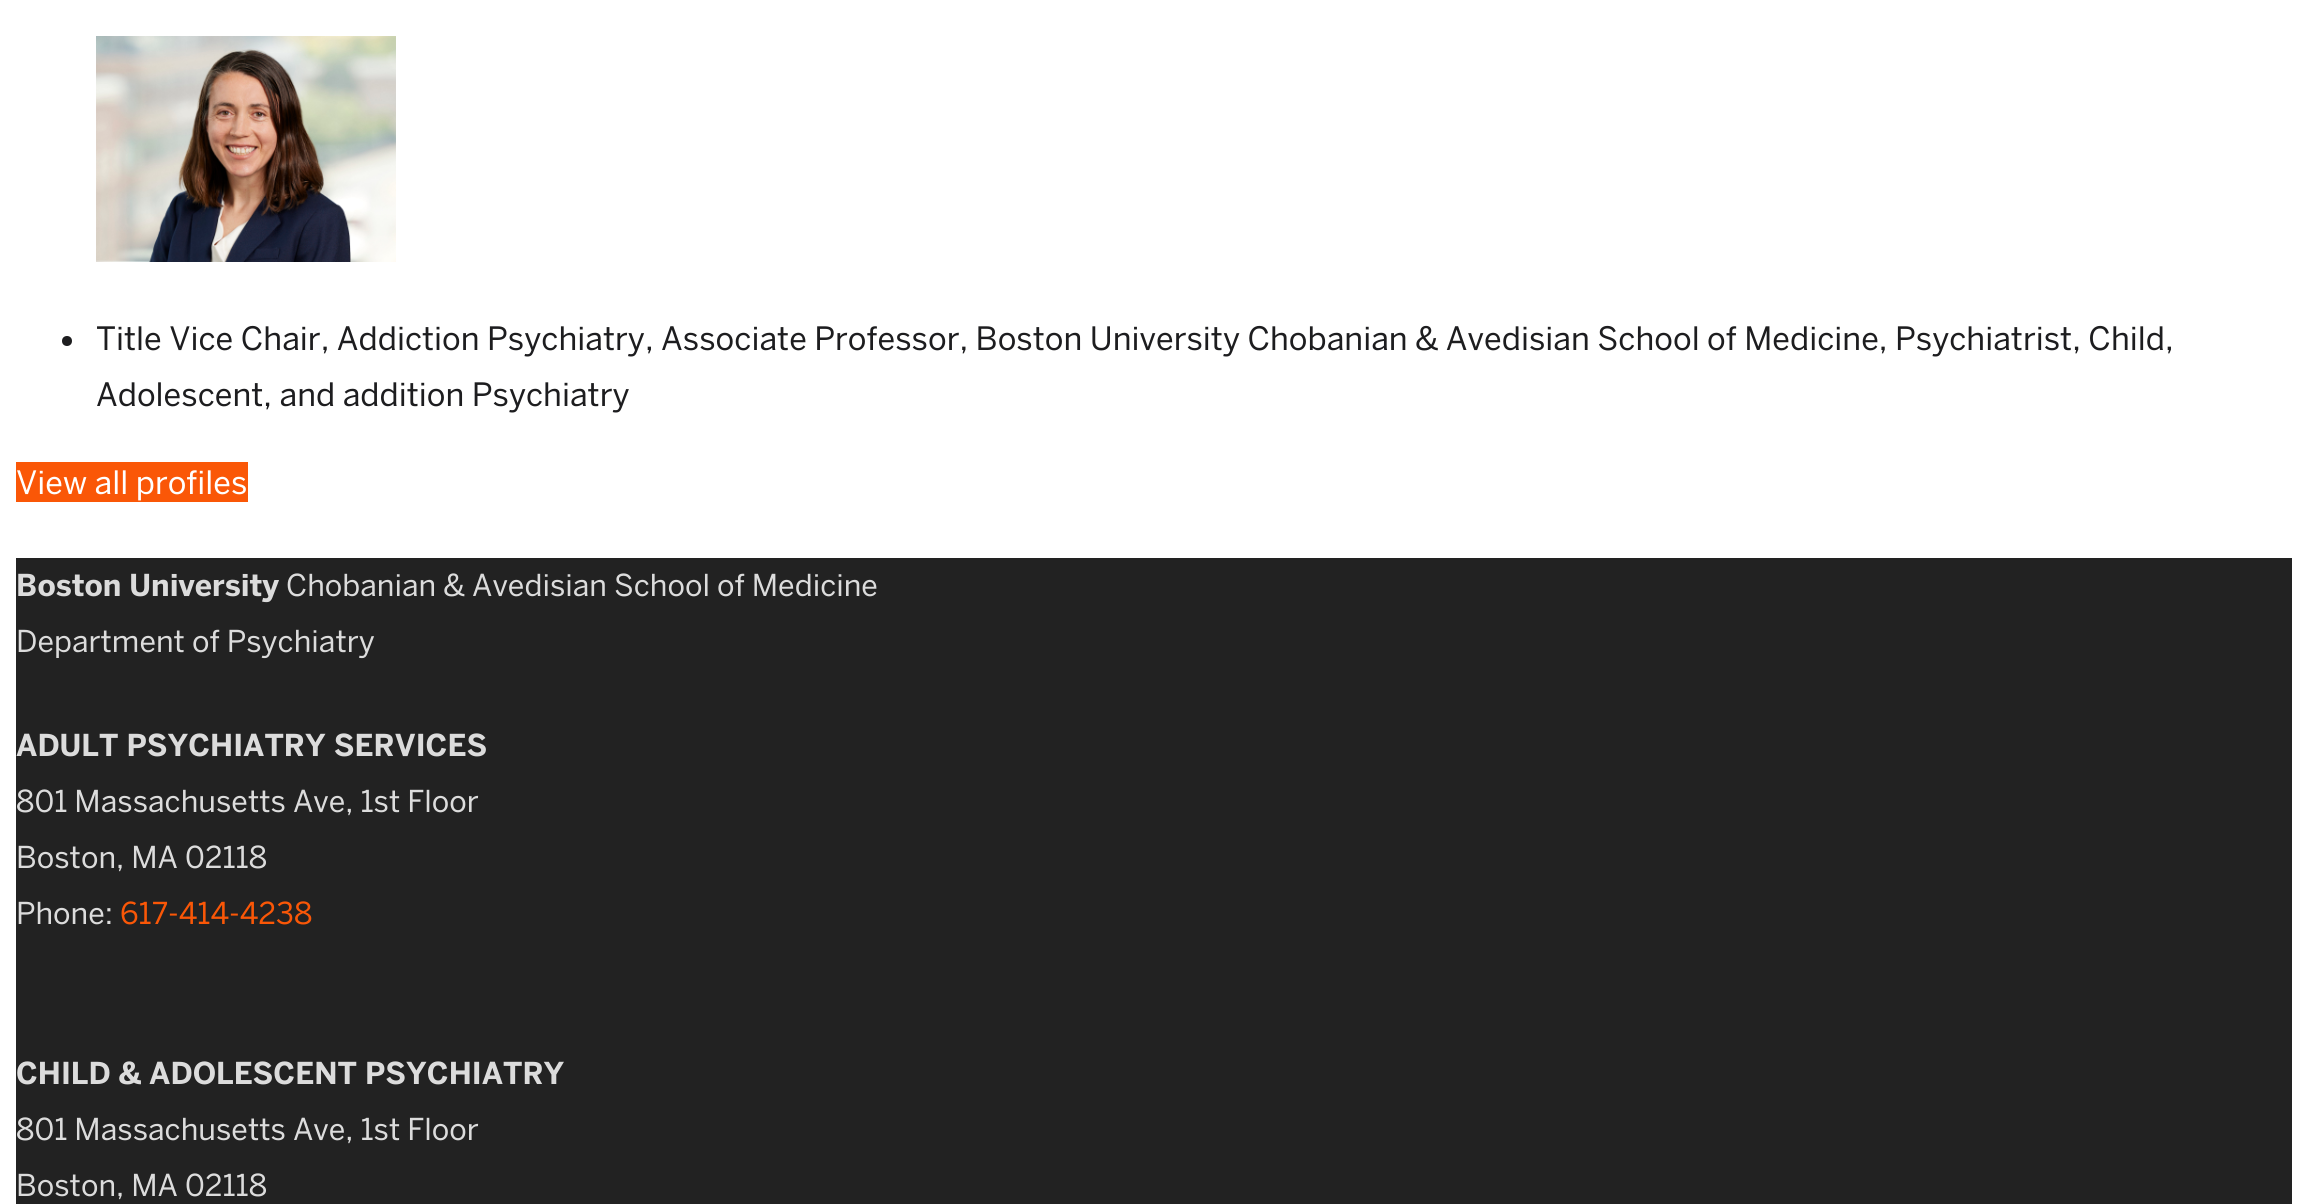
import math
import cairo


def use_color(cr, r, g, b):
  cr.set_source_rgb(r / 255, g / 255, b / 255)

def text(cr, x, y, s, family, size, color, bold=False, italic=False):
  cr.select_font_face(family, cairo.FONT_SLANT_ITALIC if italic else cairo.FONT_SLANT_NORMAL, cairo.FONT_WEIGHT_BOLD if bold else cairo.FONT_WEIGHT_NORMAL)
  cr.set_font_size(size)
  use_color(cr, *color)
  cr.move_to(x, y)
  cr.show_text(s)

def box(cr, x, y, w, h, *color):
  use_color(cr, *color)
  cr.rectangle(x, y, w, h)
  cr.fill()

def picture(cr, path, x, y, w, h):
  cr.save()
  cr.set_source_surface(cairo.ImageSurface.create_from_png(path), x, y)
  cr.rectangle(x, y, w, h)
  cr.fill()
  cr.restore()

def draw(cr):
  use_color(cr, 255, 255, 255)
  cr.paint()
  picture(cr, "img_01.png", 96, 36, 300, 226)
  use_color(cr, 29, 29, 31)
  cr.arc(67, 341, 5, 0, 2 * math.pi)
  cr.fill()
  box(cr, 16, 462, 232, 40, 250, 87, 7)
  box(cr, 16, 558, 2276, 646, 34, 34, 34)
  text(cr, 96, 350, "Title Vice Chair, Addiction Psychiatry, Associate Professor, Boston University Chobanian & Avedisian School of Medicine, Psychiatrist, Child,", "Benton", 32, (29, 29, 31))
  text(cr, 96, 406, "Adolescent, and addition Psychiatry", "Benton", 32, (29, 29, 31))
  text(cr, 16, 494, "View all profiles", "Benton", 32, (255, 255, 255))
  text(cr, 16, 596, "Boston University", "Benton", 30, (220, 220, 220), bold=True)
  text(cr, 286, 596, "Chobanian & Avedisian School of Medicine", "Benton", 30, (220, 220, 220))
  text(cr, 16, 652, "Department of Psychiatry", "Benton", 30, (220, 220, 220))
  text(cr, 16, 756, "ADULT PSYCHIATRY SERVICES", "Benton", 30, (220, 220, 220), bold=True)
  text(cr, 16, 812, "801 Massachusetts Ave, 1st Floor", "Benton", 30, (220, 220, 220))
  text(cr, 16, 868, "Boston, MA 02118", "Benton", 30, (220, 220, 220))
  text(cr, 16, 924, "Phone:", "Benton", 30, (220, 220, 220))
  text(cr, 120, 924, "617-414-4238", "Benton", 30, (250, 87, 7))
  text(cr, 16, 1084, "CHILD & ADOLESCENT PSYCHIATRY", "Benton", 30, (220, 220, 220), bold=True)
  text(cr, 16, 1140, "801 Massachusetts Ave, 1st Floor", "Benton", 30, (220, 220, 220))
  text(cr, 16, 1196, "Boston, MA 02118", "Benton", 30, (220, 220, 220))


surface = cairo.ImageSurface(cairo.FORMAT_RGB24, 2308, 1204)
cr = cairo.Context(surface)
options = cairo.FontOptions()
options.set_hint_metrics(cairo.HINT_METRICS_OFF)
options.set_hint_style(cairo.HINT_STYLE_NONE)
cr.set_font_options(options)
cr.set_miter_limit(4)
draw(cr)
surface.write_to_png("out.png")
